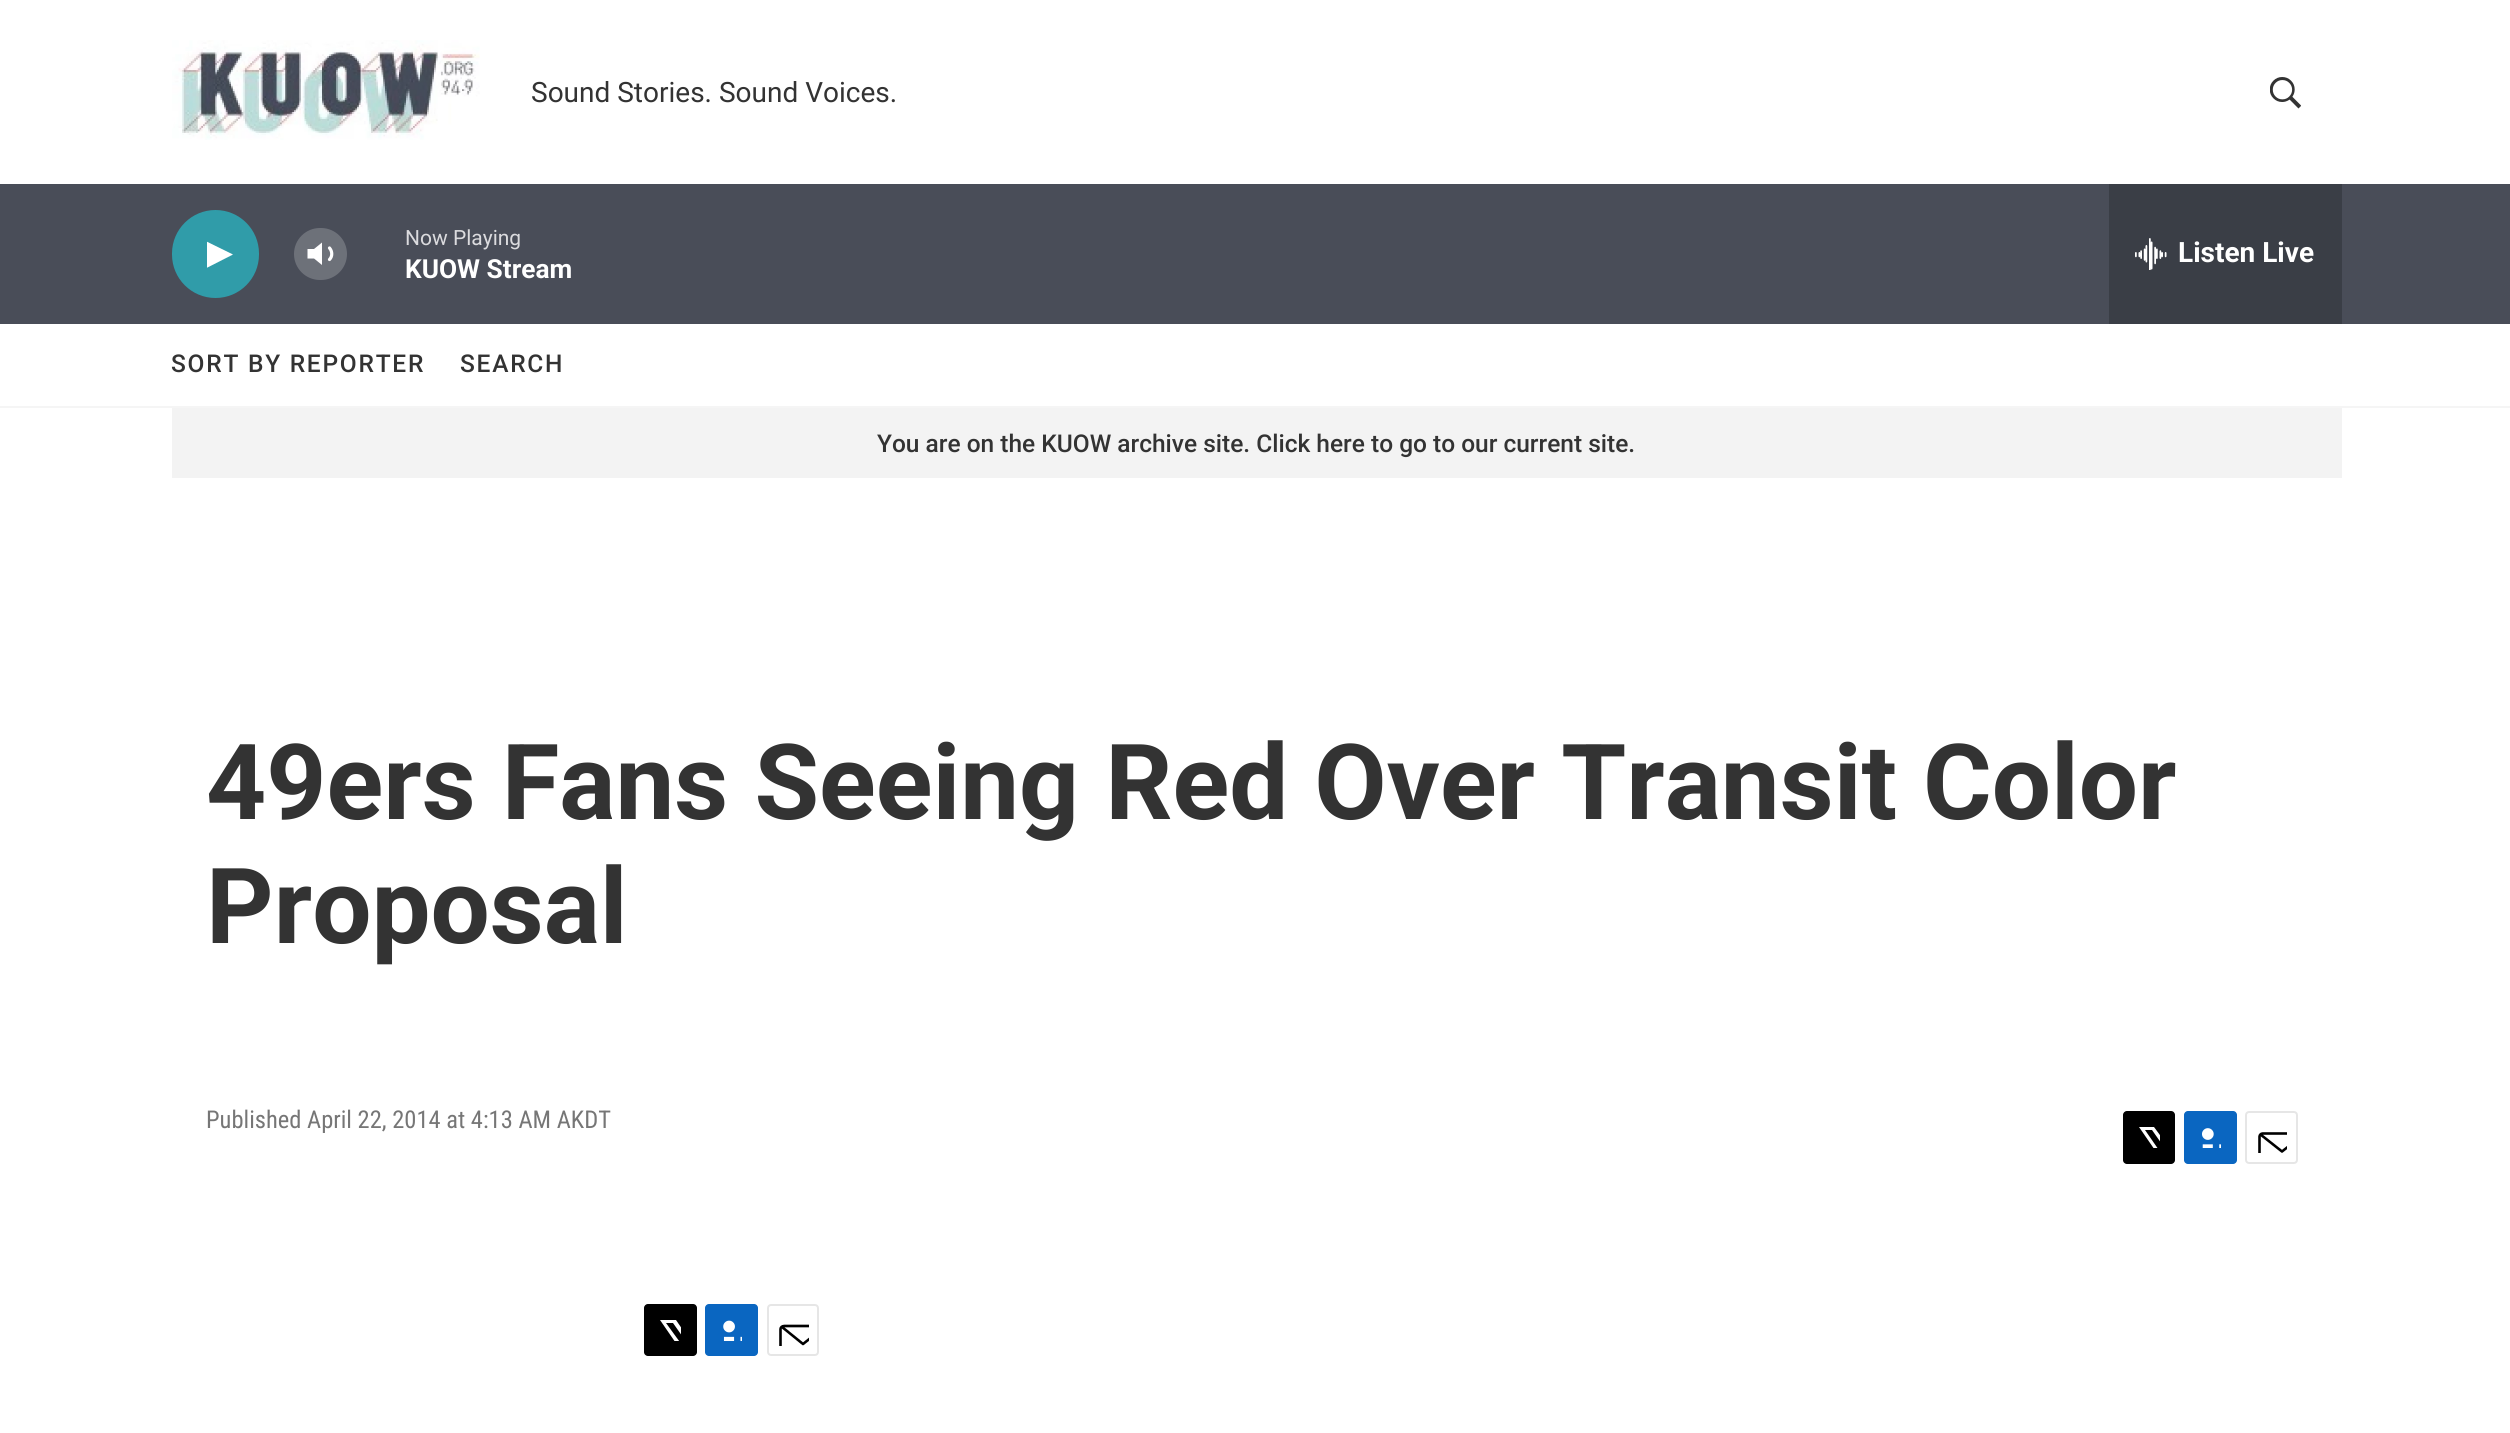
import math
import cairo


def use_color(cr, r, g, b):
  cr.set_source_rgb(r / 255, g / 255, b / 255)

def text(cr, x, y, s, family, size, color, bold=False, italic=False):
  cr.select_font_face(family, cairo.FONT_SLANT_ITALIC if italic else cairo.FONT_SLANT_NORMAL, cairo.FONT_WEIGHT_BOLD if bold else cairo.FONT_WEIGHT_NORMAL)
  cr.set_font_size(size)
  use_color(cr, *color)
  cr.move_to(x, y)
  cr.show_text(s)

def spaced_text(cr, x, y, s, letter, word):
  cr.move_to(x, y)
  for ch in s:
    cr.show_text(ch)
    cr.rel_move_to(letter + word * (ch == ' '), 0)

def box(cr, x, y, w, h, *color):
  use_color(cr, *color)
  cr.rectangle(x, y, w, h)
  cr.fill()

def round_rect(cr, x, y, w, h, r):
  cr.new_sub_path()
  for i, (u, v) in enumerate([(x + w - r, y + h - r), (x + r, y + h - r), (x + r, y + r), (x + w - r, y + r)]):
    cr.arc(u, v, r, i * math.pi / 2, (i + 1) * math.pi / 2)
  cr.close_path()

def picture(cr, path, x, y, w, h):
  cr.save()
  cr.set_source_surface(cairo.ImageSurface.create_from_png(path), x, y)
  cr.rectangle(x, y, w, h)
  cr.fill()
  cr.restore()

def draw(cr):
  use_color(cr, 255, 255, 255)
  cr.paint()
  box(cr, 0, 406, 2510, 2, 245, 245, 245)
  picture(cr, "img_01.png", 172, 40, 308, 100)
  picture(cr, "img_02.png", 2270, 77, 31, 32)
  box(cr, 0, 184, 2510, 140, 73, 77, 88)
  use_color(cr, 48, 156, 169)
  round_rect(cr, 172, 210, 87, 88, 43.5)
  cr.fill()
  cr.save()
  cr.rectangle(207, 238, 26, 33)
  cr.clip()
  use_color(cr, 255, 255, 255)
  cr.new_path()
  cr.move_to(206.5, 241.5)
  cr.line_to(233, 254.5)
  cr.line_to(206.5, 268)
  cr.close_path()
  cr.fill()
  cr.restore()
  use_color(cr, 255, 255, 255)
  cr.new_path()
  cr.move_to(322, 242.5)
  cr.line_to(314, 249)
  cr.line_to(307.5, 249)
  cr.line_to(307.5, 258.5)
  cr.line_to(314, 258.5)
  cr.line_to(322, 265)
  cr.close_path()
  cr.fill()
  cr.new_path()
  cr.move_to(329.5, 248)
  cr.curve_to(332.5, 251.5, 332.5, 256.5, 329.5, 259.5)
  cr.set_line_width(3.2)
  cr.set_line_cap(cairo.LINE_CAP_ROUND)
  cr.set_line_join(cairo.LINE_JOIN_ROUND)
  cr.stroke()
  cr.set_source_rgba(1, 1, 1, 0.2)
  round_rect(cr, 294, 228, 53, 52, 26)
  cr.fill()
  box(cr, 2109, 184, 233, 140, 58, 62, 70)
  picture(cr, "img_03.png", 2135, 238, 32, 32)
  box(cr, 172, 408, 2170, 70, 243, 243, 243)
  use_color(cr, 0, 0, 0)
  round_rect(cr, 2123, 1111, 52, 53, 4)
  cr.fill()
  cr.save()
  cr.rectangle(2139, 1127, 21, 21)
  cr.clip()
  use_color(cr, 255, 255, 255)
  cr.new_path()
  cr.move_to(2170, 1149)
  cr.line_to(2175, 1156.5)
  cr.curve_to(2175, 1158.5, 2175.5, 1160.5, 2174.5, 1162)
  cr.line_to(2152, 1130)
  cr.line_to(2145, 1130)
  cr.line_to(2168.5, 1164)
  cr.line_to(2164.5, 1164)
  cr.line_to(2161, 1159)
  cr.line_to(2157, 1164)
  cr.line_to(2152, 1164)
  cr.line_to(2159, 1156)
  cr.line_to(2139, 1127)
  cr.line_to(2154, 1127)
  cr.line_to(2168, 1146)
  cr.line_to(2175, 1137.5)
  cr.line_to(2175, 1143)
  cr.close_path()
  cr.fill()
  cr.restore()
  use_color(cr, 10, 102, 193)
  round_rect(cr, 2184, 1111, 53, 53, 4)
  cr.fill()
  picture(cr, "img_04.png", 2202, 1128, 19, 20)
  round_rect(cr, 2246, 1112, 51, 51, 3)
  use_color(cr, 230, 230, 230)
  cr.set_line_width(2)
  cr.set_line_cap(cairo.LINE_CAP_BUTT)
  cr.set_line_join(cairo.LINE_JOIN_MITER)
  cr.stroke()
  cr.save()
  cr.rectangle(2256, 1122, 31, 31)
  cr.clip()
  cr.new_path()
  cr.move_to(2304.5, 1160)
  cr.curve_to(2304.5, 1162, 2303, 1163.5, 2301.5, 1163.5)
  cr.line_to(2262.5, 1163.5)
  cr.curve_to(2261, 1163.5, 2259.5, 1162, 2259.5, 1160)
  cr.line_to(2259.5, 1136.5)
  cr.curve_to(2259.5, 1135, 2261, 1133.5, 2262.5, 1133.5)
  cr.line_to(2301.5, 1133.5)
  cr.curve_to(2303, 1133.5, 2304.5, 1135, 2304.5, 1136.5)
  cr.close_path()
  cr.move_to(2303.5, 1134.5)
  cr.line_to(2282, 1151.5)
  cr.line_to(2260.5, 1134.5)
  use_color(cr, 0, 0, 0)
  cr.set_line_width(2.6)
  cr.set_line_cap(cairo.LINE_CAP_ROUND)
  cr.set_line_join(cairo.LINE_JOIN_ROUND)
  cr.stroke()
  cr.restore()
  use_color(cr, 0, 0, 0)
  round_rect(cr, 644, 1304, 53, 52, 4)
  cr.fill()
  cr.save()
  cr.rectangle(660, 1320, 21, 21)
  cr.clip()
  use_color(cr, 255, 255, 255)
  cr.new_path()
  cr.move_to(691, 1342)
  cr.line_to(697, 1350.5)
  cr.curve_to(697, 1352.5, 697, 1354, 695.5, 1355)
  cr.line_to(673, 1323)
  cr.line_to(666, 1323)
  cr.line_to(690, 1356)
  cr.line_to(685, 1356)
  cr.line_to(682, 1352)
  cr.line_to(678.5, 1356)
  cr.line_to(674, 1356)
  cr.line_to(680, 1349)
  cr.line_to(660, 1320)
  cr.line_to(676, 1320)
  cr.line_to(689, 1339)
  cr.line_to(697, 1329.5)
  cr.line_to(697, 1335)
  cr.close_path()
  cr.fill()
  cr.restore()
  use_color(cr, 10, 102, 193)
  round_rect(cr, 705, 1304, 53, 52, 4)
  cr.fill()
  picture(cr, "img_05.png", 723, 1320, 19, 21)
  round_rect(cr, 768, 1305, 50, 50, 3)
  use_color(cr, 230, 230, 230)
  cr.stroke()
  cr.save()
  cr.rectangle(777, 1314, 32, 32)
  cr.clip()
  cr.new_path()
  cr.move_to(826, 1352.5)
  cr.curve_to(826, 1354.5, 824.5, 1356, 822.5, 1356)
  cr.line_to(784, 1356)
  cr.curve_to(782, 1356, 780.5, 1354.5, 780.5, 1352.5)
  cr.line_to(780.5, 1329)
  cr.curve_to(780.5, 1327.5, 782, 1326, 784, 1326)
  cr.line_to(822.5, 1326)
  cr.curve_to(824.5, 1326, 826, 1327.5, 826, 1329)
  cr.close_path()
  cr.move_to(824.5, 1327)
  cr.line_to(803, 1344)
  cr.line_to(782, 1327)
  use_color(cr, 0, 0, 0)
  cr.set_line_width(2.6)
  cr.set_line_cap(cairo.LINE_CAP_ROUND)
  cr.set_line_join(cairo.LINE_JOIN_ROUND)
  cr.stroke()
  cr.restore()
  text(cr, 531, 102, "Sound Stories. Sound Voices.", "Roboto", 28, (51, 51, 51))
  text(cr, 405, 245, "Now Playing", "Roboto", 21, (219, 219, 222))
  text(cr, 405, 278, "KUOW Stream", "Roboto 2", 26.25, (255, 255, 255), bold=True)
  text(cr, 2178, 262, "Listen Live", "Roboto 2", 28, (255, 255, 255), bold=True)
  cr.select_font_face("Roboto Medium")
  cr.set_font_size(24.5)
  use_color(cr, 51, 51, 51)
  spaced_text(cr, 171, 372, "SORT BY REPORTER", 1.75, 0)
  spaced_text(cr, 460, 372, "SEARCH", 1.75, 0)
  text(cr, 877, 452, "You are on the KUOW archive site. Click here to go to our current site.", "Roboto Medium", 24.5, (51, 51, 51))
  text(cr, 206, 819, "49ers Fans Seeing Red Over Transit Color", "Roboto", 105, (51, 51, 51), bold=True)
  text(cr, 206, 943, "Proposal", "Roboto", 105, (51, 51, 51), bold=True)
  text(cr, 206, 1128, "Published April 22, 2014 at 4:13 AM AKDT", "Roboto Condensed", 24.5, (118, 118, 118))


surface = cairo.ImageSurface(cairo.FORMAT_RGB24, 2510, 1433)
cr = cairo.Context(surface)
options = cairo.FontOptions()
options.set_hint_metrics(cairo.HINT_METRICS_OFF)
options.set_hint_style(cairo.HINT_STYLE_NONE)
cr.set_font_options(options)
cr.set_miter_limit(4)
draw(cr)
surface.write_to_png("out.png")
